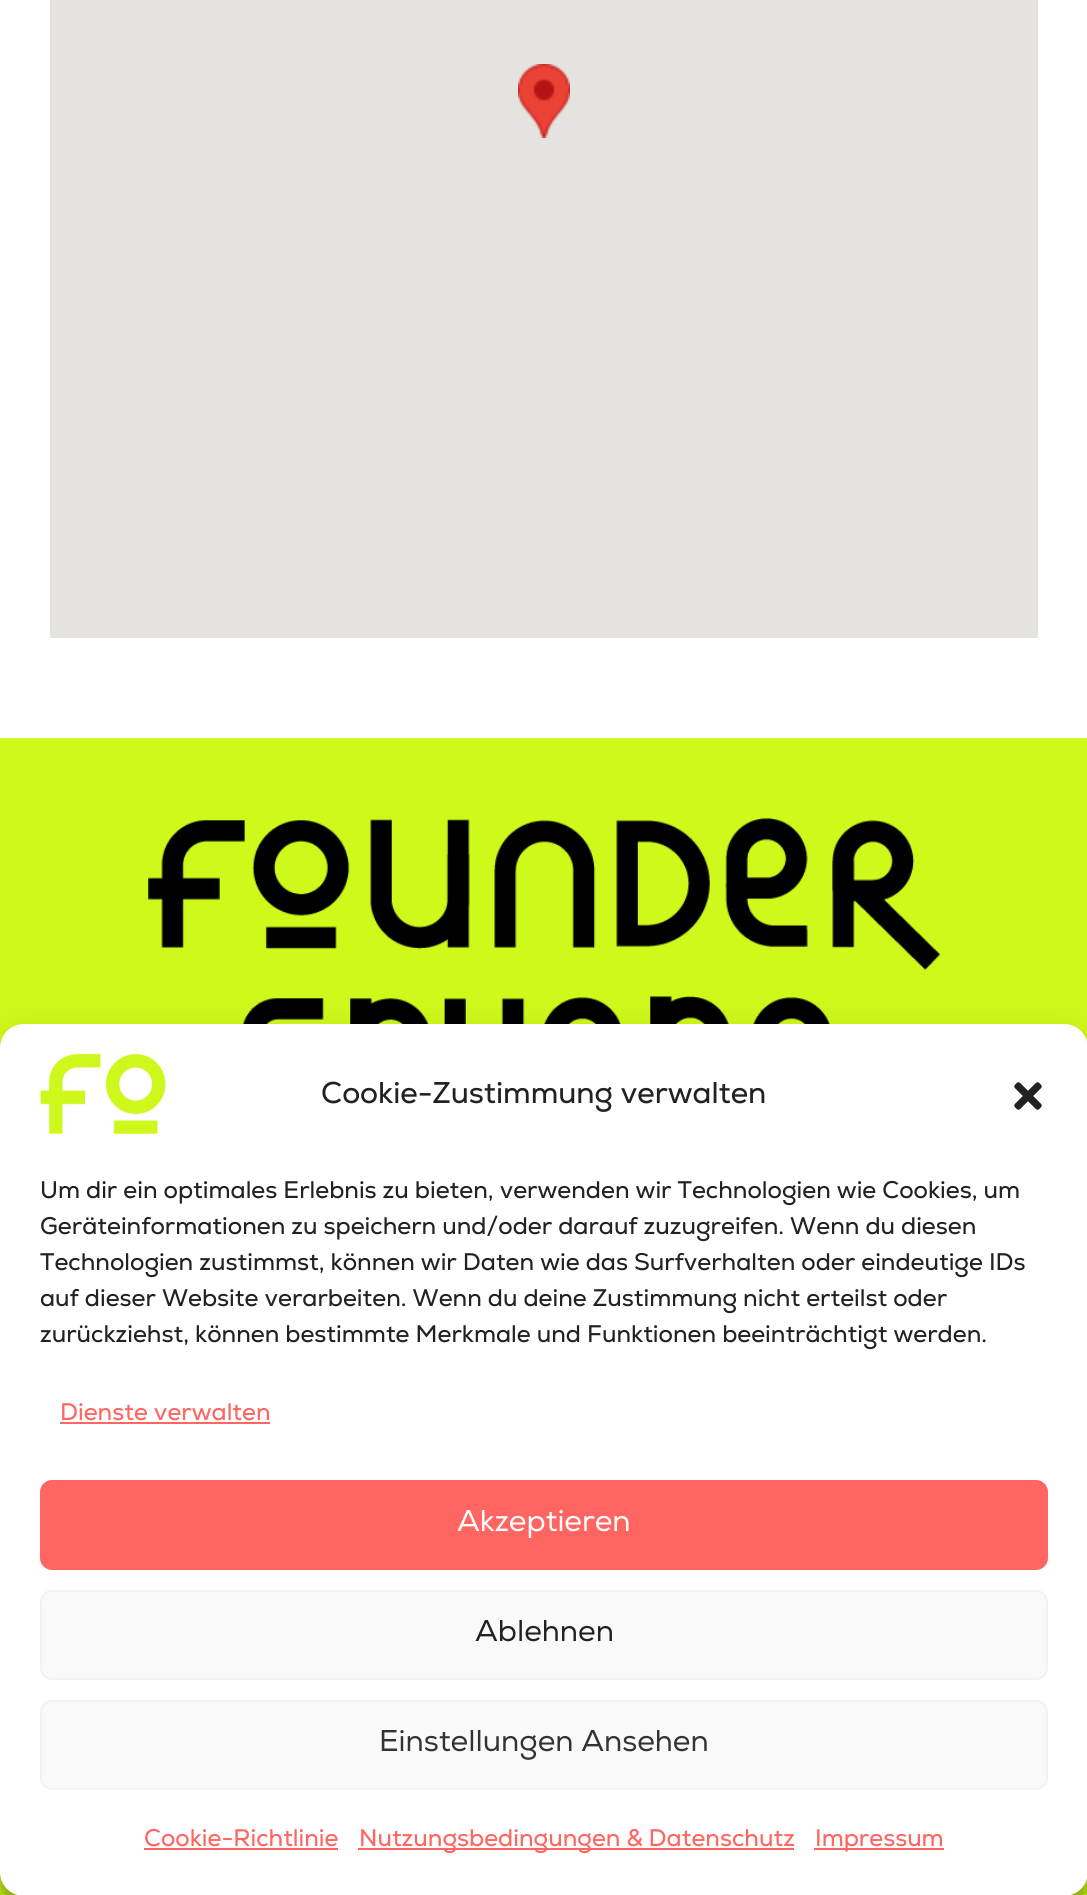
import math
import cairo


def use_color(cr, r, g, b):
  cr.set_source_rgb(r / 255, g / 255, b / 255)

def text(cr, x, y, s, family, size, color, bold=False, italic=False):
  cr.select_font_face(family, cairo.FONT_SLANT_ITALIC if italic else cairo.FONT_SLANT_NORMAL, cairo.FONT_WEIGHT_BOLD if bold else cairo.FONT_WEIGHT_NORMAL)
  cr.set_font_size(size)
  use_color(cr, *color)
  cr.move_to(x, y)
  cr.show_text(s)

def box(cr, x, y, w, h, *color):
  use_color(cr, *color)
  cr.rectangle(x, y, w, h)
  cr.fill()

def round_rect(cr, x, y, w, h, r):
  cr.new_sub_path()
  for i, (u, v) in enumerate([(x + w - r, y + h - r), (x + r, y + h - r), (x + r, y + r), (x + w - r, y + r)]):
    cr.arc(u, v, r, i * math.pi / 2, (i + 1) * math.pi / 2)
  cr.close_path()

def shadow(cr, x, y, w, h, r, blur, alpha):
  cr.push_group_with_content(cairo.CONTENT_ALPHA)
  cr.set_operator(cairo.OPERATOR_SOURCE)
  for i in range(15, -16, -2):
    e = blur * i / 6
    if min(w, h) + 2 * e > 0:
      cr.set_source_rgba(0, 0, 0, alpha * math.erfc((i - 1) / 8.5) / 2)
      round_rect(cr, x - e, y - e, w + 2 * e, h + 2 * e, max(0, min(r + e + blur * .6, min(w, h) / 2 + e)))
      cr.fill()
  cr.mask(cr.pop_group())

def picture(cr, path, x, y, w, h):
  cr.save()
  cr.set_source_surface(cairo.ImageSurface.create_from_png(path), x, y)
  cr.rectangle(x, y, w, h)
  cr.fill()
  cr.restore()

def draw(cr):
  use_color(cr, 255, 255, 255)
  cr.paint()
  box(cr, 50, 0, 988, 638, 229, 227, 223)
  picture(cr, "img_01.png", 518, 64, 52, 74)
  box(cr, 0, 738, 1087, 1157, 207, 248, 27)
  picture(cr, "img_02.png", 148, 818, 792, 206)
  use_color(cr, 0, 0, 0)
  shadow(cr, 0, 1036, 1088, 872, 24, 6, 0.23)
  shadow(cr, 0, 1044, 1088, 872, 24, 20, 0.19)
  use_color(cr, 255, 255, 255)
  round_rect(cr, 0, 1024, 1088, 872, 24)
  cr.fill()
  picture(cr, "img_03.png", 40, 1053, 126, 81)
  picture(cr, "img_04.png", 1014, 1082, 28, 28)
  box(cr, 60, 1422, 210, 2, 255, 102, 98)
  round_rect(cr, 41, 1481, 1006, 88, 11)
  cr.fill_preserve()
  cr.stroke()
  use_color(cr, 249, 249, 249)
  round_rect(cr, 41, 1591, 1006, 88, 11)
  cr.fill_preserve()
  use_color(cr, 242, 242, 242)
  cr.stroke()
  use_color(cr, 249, 249, 249)
  round_rect(cr, 41, 1701, 1006, 88, 11)
  cr.fill_preserve()
  use_color(cr, 242, 242, 242)
  cr.stroke()
  box(cr, 144, 1848, 194, 2, 255, 102, 98)
  box(cr, 358, 1848, 436, 2, 255, 102, 98)
  box(cr, 814, 1848, 130, 2, 255, 102, 98)
  text(cr, 321, 1103, "Cookie-Zustimmung verwalten", "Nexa", 30, (34, 34, 34))
  text(cr, 40, 1198, "Um dir ein optimales Erlebnis zu bieten, verwenden wir Technologien wie Cookies, um", "Nexa", 24, (34, 34, 34))
  text(cr, 40, 1234, "Geräteinformationen zu speichern und/oder darauf zuzugreifen. Wenn du diesen", "Nexa", 24, (34, 34, 34))
  text(cr, 40, 1270, "Technologien zustimmst, können wir Daten wie das Surfverhalten oder eindeutige IDs", "Nexa", 24, (34, 34, 34))
  text(cr, 40, 1306, "auf dieser Website verarbeiten. Wenn du deine Zustimmung nicht erteilst oder", "Nexa", 24, (34, 34, 34))
  text(cr, 40, 1342, "zurückziehst, können bestimmte Merkmale und Funktionen beeinträchtigt werden.", "Nexa", 24, (34, 34, 34))
  text(cr, 60, 1420, "Dienste verwalten", "Nexa", 24, (255, 102, 98))
  text(cr, 457, 1531, "Akzeptieren", "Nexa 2", 30, (255, 255, 255))
  text(cr, 475, 1641, "Ablehnen", "Nexa 2", 30, (34, 34, 34))
  text(cr, 379, 1751, "Einstellungen Ansehen", "Nexa 2", 30, (51, 51, 51))
  text(cr, 144, 1846, "Cookie-Richtlinie", "Nexa", 24, (255, 102, 98))
  text(cr, 359, 1846, "Nutzungsbedingungen & Datenschutz", "Nexa", 24, (255, 102, 98))
  text(cr, 815, 1846, "Impressum", "Nexa", 24, (255, 102, 98))


surface = cairo.ImageSurface(cairo.FORMAT_RGB24, 1087, 1895)
cr = cairo.Context(surface)
options = cairo.FontOptions()
options.set_hint_metrics(cairo.HINT_METRICS_OFF)
options.set_hint_style(cairo.HINT_STYLE_NONE)
cr.set_font_options(options)
cr.set_miter_limit(4)
draw(cr)
surface.write_to_png("out.png")
